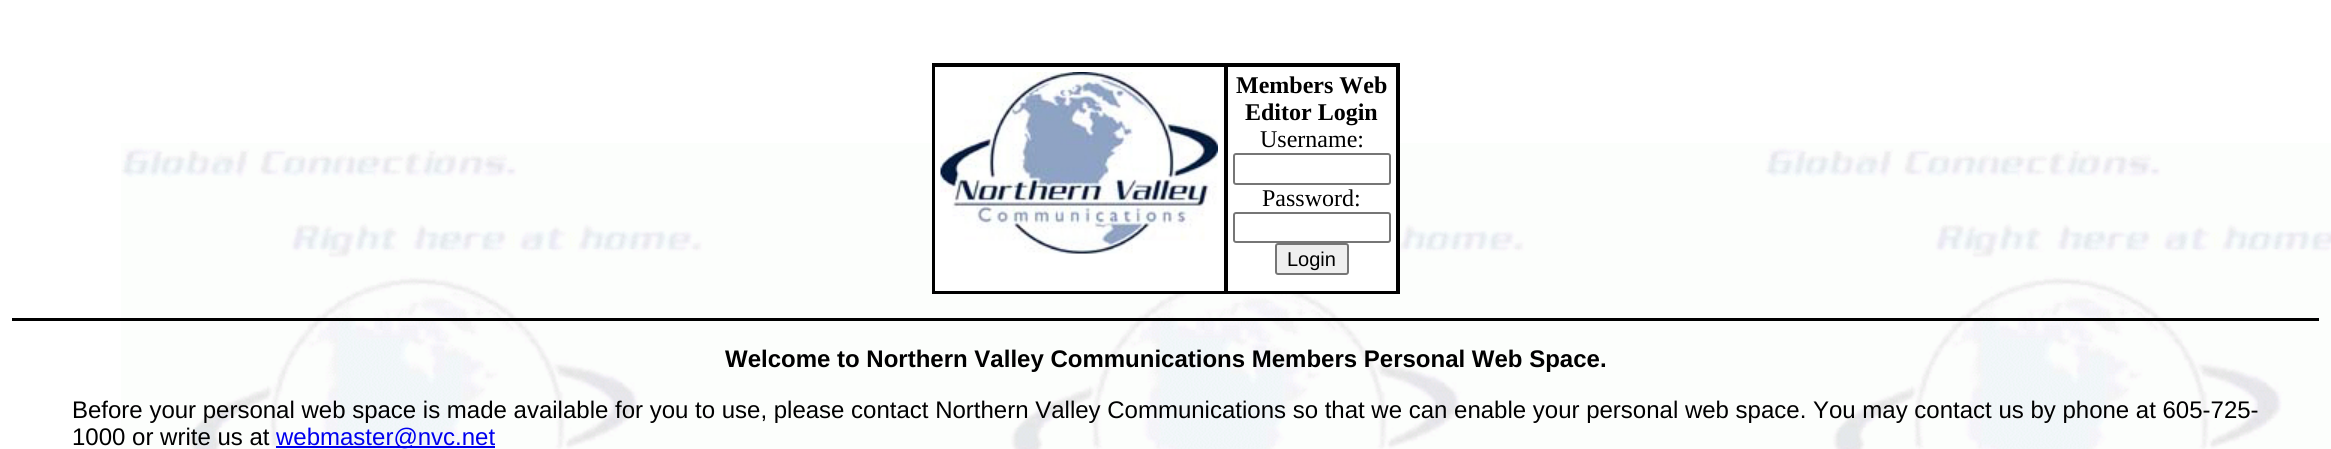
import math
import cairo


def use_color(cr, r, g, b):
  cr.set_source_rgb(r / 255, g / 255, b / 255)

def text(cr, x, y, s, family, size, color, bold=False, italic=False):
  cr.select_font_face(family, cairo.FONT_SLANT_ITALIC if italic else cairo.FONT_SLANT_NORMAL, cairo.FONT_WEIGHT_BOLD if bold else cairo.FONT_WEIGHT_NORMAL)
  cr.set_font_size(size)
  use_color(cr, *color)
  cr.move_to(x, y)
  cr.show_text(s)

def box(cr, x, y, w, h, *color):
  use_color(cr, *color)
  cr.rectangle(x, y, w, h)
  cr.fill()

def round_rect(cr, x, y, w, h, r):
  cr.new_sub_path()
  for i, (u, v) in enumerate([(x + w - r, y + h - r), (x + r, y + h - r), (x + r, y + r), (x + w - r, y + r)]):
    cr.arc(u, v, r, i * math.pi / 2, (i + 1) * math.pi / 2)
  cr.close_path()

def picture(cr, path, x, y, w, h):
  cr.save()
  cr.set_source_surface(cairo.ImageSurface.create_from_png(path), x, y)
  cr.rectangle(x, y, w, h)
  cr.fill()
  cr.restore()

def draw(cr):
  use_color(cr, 255, 255, 255)
  cr.paint()
  picture(cr, "img_01.png", 121, 143, 2210, 306)
  cr.rectangle(933, 64, 466, 229)
  use_color(cr, 0, 0, 0)
  cr.stroke()
  box(cr, 935, 143, 461, 148, 255, 255, 255)
  cr.rectangle(934, 66, 291, 226)
  use_color(cr, 0, 0, 0)
  cr.stroke()
  picture(cr, "img_02.png", 940, 72, 278, 182)
  cr.rectangle(1227, 66, 170, 226)
  cr.stroke()
  round_rect(cr, 1234, 154, 156, 30, 2)
  use_color(cr, 118, 118, 118)
  cr.stroke()
  round_rect(cr, 1234, 213, 156, 29, 2)
  cr.stroke()
  use_color(cr, 239, 239, 239)
  round_rect(cr, 1276, 244, 72, 30, 2)
  cr.fill_preserve()
  use_color(cr, 118, 118, 118)
  cr.stroke()
  box(cr, 12, 318, 2307, 3, 0, 0, 0)
  box(cr, 276, 446, 219, 2, 0, 0, 238)
  text(cr, 1236, 93, "Members Web", "Liberation Serif", 24, (0, 0, 0), bold=True)
  text(cr, 1245, 120, "Editor Login", "Liberation Serif", 24, (0, 0, 0), bold=True)
  text(cr, 1260, 147, "Username:", "Liberation Serif", 24, (0, 0, 0))
  text(cr, 1262, 206, "Password:", "Liberation Serif", 24, (0, 0, 0))
  text(cr, 1287, 266, "Login", "Liberation Sans", 20, (0, 0, 0))
  text(cr, 725, 367, "Welcome to Northern Valley Communications Members Personal Web Space.", "Liberation Sans", 24, (0, 0, 0), bold=True)
  text(cr, 72, 418, "Before your personal web space is made available for you to use, please contact Northern Valley Communications so that we can enable your personal web space. You may contact us by phone at 605-725-", "Liberation Sans", 24, (0, 0, 0))
  text(cr, 72, 445, "1000 or write us at", "Liberation Sans", 24, (0, 0, 0))
  text(cr, 276, 445, "webmaster@nvc.net", "Liberation Sans", 24, (0, 0, 238))


surface = cairo.ImageSurface(cairo.FORMAT_RGB24, 2331, 449)
cr = cairo.Context(surface)
options = cairo.FontOptions()
options.set_hint_metrics(cairo.HINT_METRICS_OFF)
options.set_hint_style(cairo.HINT_STYLE_NONE)
cr.set_font_options(options)
cr.set_miter_limit(4)
draw(cr)
surface.write_to_png("out.png")
